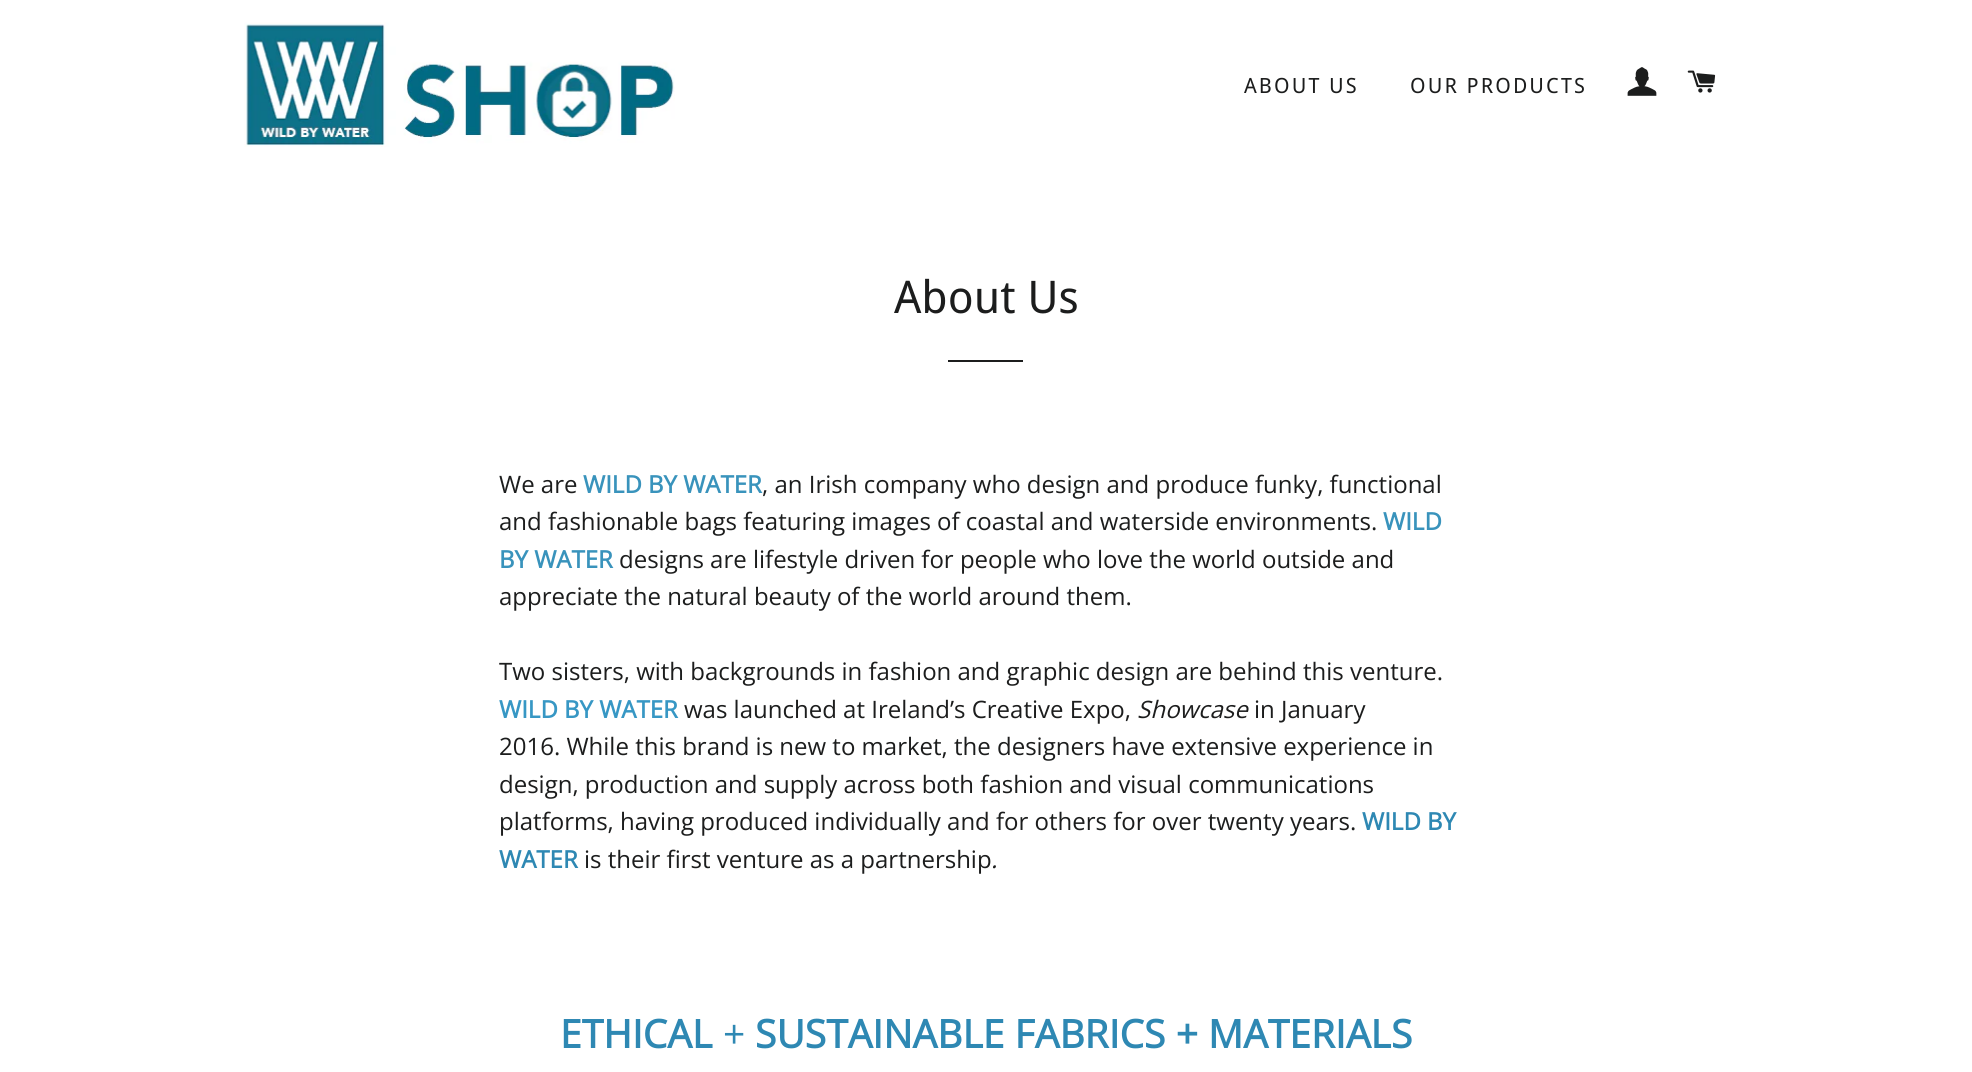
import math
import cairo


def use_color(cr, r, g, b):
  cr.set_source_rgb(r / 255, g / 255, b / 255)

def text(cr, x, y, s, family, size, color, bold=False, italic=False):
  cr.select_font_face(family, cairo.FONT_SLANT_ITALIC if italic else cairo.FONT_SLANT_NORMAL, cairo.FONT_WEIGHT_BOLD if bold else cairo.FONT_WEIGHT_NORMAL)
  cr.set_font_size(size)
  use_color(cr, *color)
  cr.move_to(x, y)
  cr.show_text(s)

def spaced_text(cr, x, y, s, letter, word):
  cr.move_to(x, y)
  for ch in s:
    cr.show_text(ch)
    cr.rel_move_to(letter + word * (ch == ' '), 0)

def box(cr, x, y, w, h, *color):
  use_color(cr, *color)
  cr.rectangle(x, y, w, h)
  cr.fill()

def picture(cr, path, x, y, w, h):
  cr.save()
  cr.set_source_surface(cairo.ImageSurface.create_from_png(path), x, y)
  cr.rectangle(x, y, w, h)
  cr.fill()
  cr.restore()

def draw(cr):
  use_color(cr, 255, 255, 255)
  cr.paint()
  picture(cr, "img_01.png", 244, 22, 431, 125)
  picture(cr, "img_02.png", 1627, 67, 30, 29)
  picture(cr, "img_03.png", 1687, 70, 29, 23)
  box(cr, 948, 360, 75, 2, 28, 29, 29)
  cr.select_font_face("Droid Sans")
  cr.set_font_size(21)
  spaced_text(cr, 1244, 93, "ABOUT US", 2.1, 0)
  spaced_text(cr, 1410, 93, "OUR PRODUCTS", 2.1, 0)
  text(cr, 894, 313, "About Us", "Droid Sans", 45, (28, 29, 29))
  text(cr, 499, 493, "We are", "Open Sans", 24, (28, 29, 29))
  text(cr, 583, 493, "WILD BY WATER", "Open Sans", 24, (57, 147, 188), bold=True)
  text(cr, 762, 493, ", an Irish company who design and produce funky, functional", "Open Sans", 24, (28, 29, 29))
  text(cr, 499, 530, "and fashionable bags featuring images of coastal and waterside environments.", "Open Sans", 24, (28, 29, 29))
  text(cr, 1383, 530, "WILD", "Open Sans", 24, (57, 147, 188), bold=True)
  text(cr, 499, 568, "BY WATER", "Open Sans", 24, (57, 147, 188), bold=True)
  text(cr, 619, 568, "designs are lifestyle driven for people who love the world outside and", "Open Sans", 24, (28, 29, 29))
  text(cr, 499, 605, "appreciate the natural beauty of the world around them.", "Open Sans", 24, (28, 29, 29))
  text(cr, 499, 680, "Two sisters, with backgrounds in fashion and graphic design are behind this venture.", "Open Sans", 24, (28, 29, 29))
  text(cr, 499, 718, "WILD BY WATER", "Open Sans", 24, (55, 151, 196), bold=True)
  text(cr, 684, 718, "was launched at Ireland’s Creative Expo,", "Open Sans", 24, (28, 29, 29))
  text(cr, 1137, 718, "Showcase", "Open Sans", 24, (28, 29, 29), italic=True)
  text(cr, 1254, 718, "in January", "Open Sans", 24, (28, 29, 29))
  text(cr, 499, 755, "2016. While this brand is new to market, the designers have extensive experience in", "Open Sans", 24, (28, 29, 29))
  text(cr, 499, 793, "design, production and supply across both fashion and visual communications", "Open Sans", 24, (28, 29, 29))
  text(cr, 499, 830, "platforms, having produced individually and for others for over twenty years.", "Open Sans", 24, (28, 29, 29))
  text(cr, 1362, 830, "WILD BY", "Open Sans", 24, (46, 136, 179), bold=True)
  text(cr, 499, 868, "WATER", "Open Sans", 24, (46, 136, 179), bold=True)
  text(cr, 584, 868, "is their first venture as a partnership", "Open Sans", 24, (28, 29, 29))
  text(cr, 991, 868, ".", "Open Sans", 24, (28, 29, 29), italic=True)
  text(cr, 560, 1048, "ETHICAL", "Open Sans", 39, (46, 136, 179), bold=True)
  text(cr, 723, 1048, "+", "Open Sans", 39, (46, 136, 179))
  text(cr, 755, 1048, "SUSTAINABLE FABRICS + MATERIALS", "Open Sans", 39, (46, 136, 179), bold=True)


surface = cairo.ImageSurface(cairo.FORMAT_RGB24, 1972, 1072)
cr = cairo.Context(surface)
options = cairo.FontOptions()
options.set_hint_metrics(cairo.HINT_METRICS_OFF)
options.set_hint_style(cairo.HINT_STYLE_NONE)
cr.set_font_options(options)
cr.set_miter_limit(4)
draw(cr)
surface.write_to_png("out.png")
